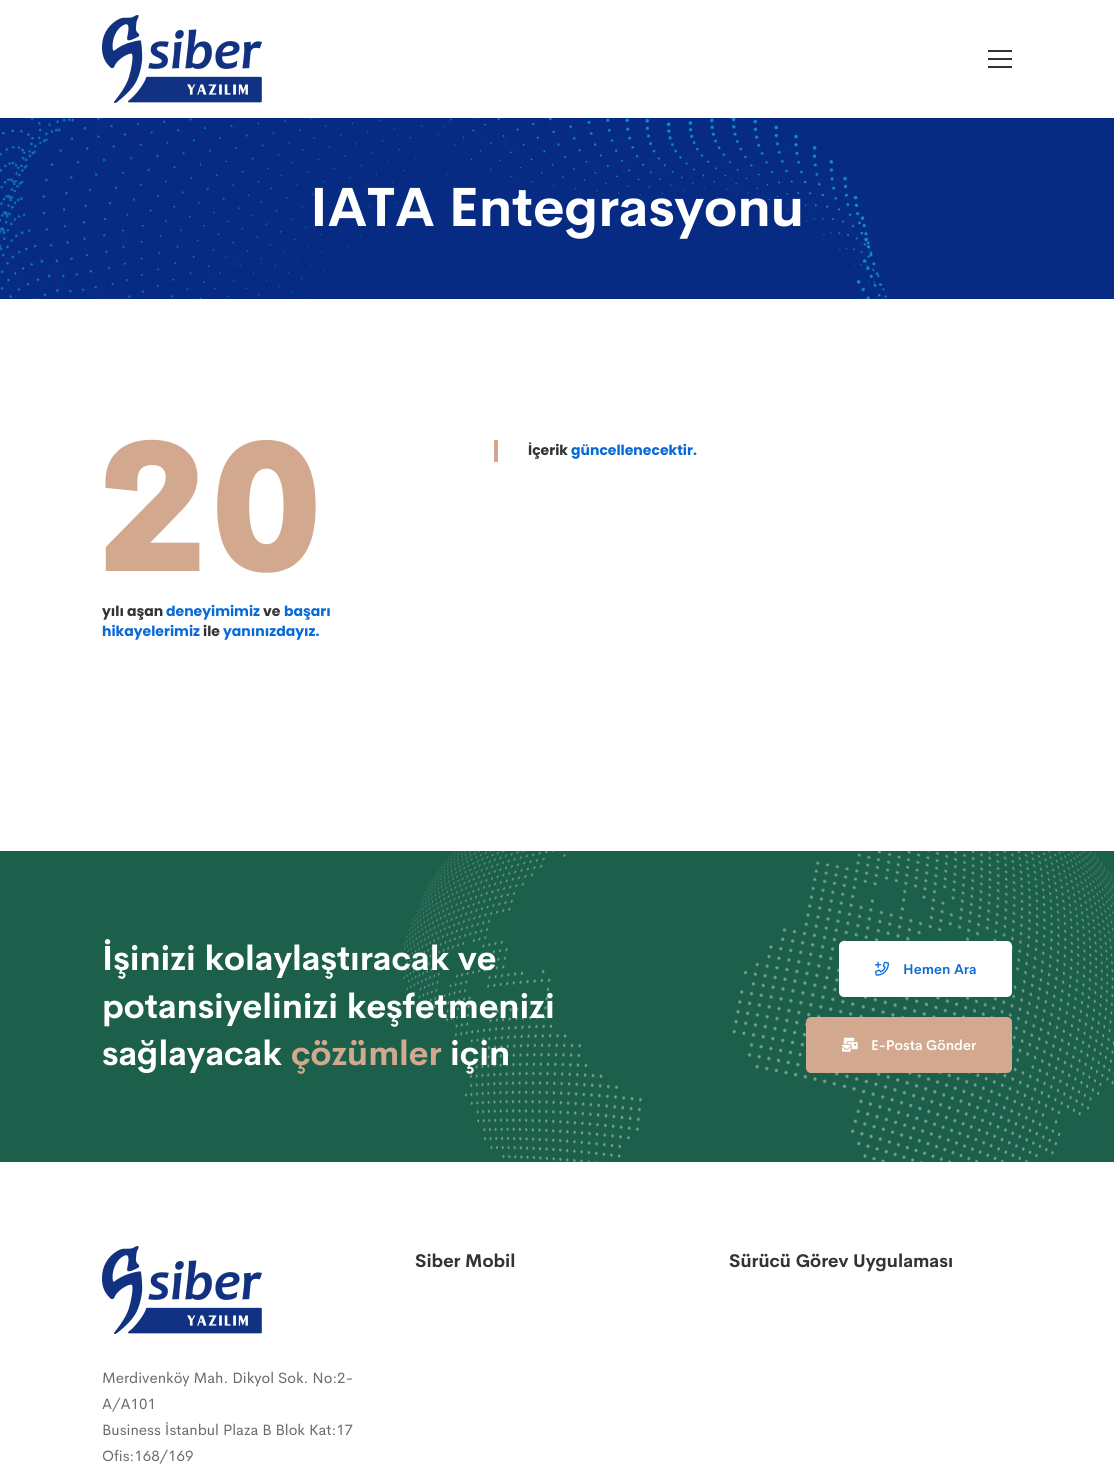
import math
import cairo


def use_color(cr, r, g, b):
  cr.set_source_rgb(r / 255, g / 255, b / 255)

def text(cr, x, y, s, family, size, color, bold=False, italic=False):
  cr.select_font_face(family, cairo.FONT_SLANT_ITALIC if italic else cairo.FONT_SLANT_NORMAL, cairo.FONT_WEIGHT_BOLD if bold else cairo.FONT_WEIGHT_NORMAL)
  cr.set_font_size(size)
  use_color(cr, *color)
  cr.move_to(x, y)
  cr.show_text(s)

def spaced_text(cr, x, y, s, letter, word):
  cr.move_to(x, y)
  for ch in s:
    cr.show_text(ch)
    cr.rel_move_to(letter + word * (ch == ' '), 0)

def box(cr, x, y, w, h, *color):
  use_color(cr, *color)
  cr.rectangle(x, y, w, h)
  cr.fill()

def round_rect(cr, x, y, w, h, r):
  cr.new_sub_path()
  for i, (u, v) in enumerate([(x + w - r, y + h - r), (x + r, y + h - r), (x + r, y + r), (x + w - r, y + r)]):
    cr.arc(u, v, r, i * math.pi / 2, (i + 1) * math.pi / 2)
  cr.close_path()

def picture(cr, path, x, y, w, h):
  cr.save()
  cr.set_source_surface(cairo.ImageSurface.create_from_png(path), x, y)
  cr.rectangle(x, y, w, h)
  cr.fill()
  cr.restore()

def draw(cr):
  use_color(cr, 255, 255, 255)
  cr.paint()
  picture(cr, "img_01.png", 102, 15, 160, 88)
  box(cr, 988, 58, 24, 2, 51, 51, 51)
  box(cr, 988, 50, 24, 2, 51, 51, 51)
  box(cr, 988, 66, 24, 2, 51, 51, 51)
  picture(cr, "img_02.png", 0, 118, 1114, 181)
  box(cr, 494, 440, 4, 22, 210, 169, 142)
  box(cr, 0, 851, 1114, 311, 28, 95, 74)
  picture(cr, "img_03.png", 403, 851, 711, 311)
  use_color(cr, 255, 255, 255)
  round_rect(cr, 839, 941, 173, 56, 5)
  cr.fill()
  picture(cr, "img_04.png", 875, 961, 14, 15)
  use_color(cr, 210, 169, 142)
  round_rect(cr, 806, 1017, 206, 56, 5)
  cr.fill()
  picture(cr, "img_05.png", 842, 1037, 16, 15)
  picture(cr, "img_01.png", 102, 1246, 160, 88)
  text(cr, 310, 226, "IATA Entegrasyonu", "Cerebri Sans", 54, (255, 255, 255), bold=True)
  cr.select_font_face("Cerebri Sans Black")
  cr.set_font_size(180)
  use_color(cr, 210, 169, 142)
  spaced_text(cr, 97, 571, "20", 2, 0)
  text(cr, 102, 616, "yılı aşan", "Poppins", 14, (51, 51, 51), bold=True)
  text(cr, 166, 616, "deneyimimiz", "Poppins", 14, (8, 106, 216), bold=True)
  text(cr, 263, 616, "ve", "Poppins", 14, (51, 51, 51), bold=True)
  text(cr, 284, 616, "başarı", "Poppins", 14, (8, 106, 216), bold=True)
  text(cr, 102, 636, "hikayelerimiz", "Poppins", 14, (8, 106, 216), bold=True)
  text(cr, 203, 636, "ile", "Poppins", 14, (51, 51, 51), bold=True)
  text(cr, 223, 636, "yanınızdayız.", "Poppins", 14, (8, 106, 216), bold=True)
  text(cr, 528, 455, "İçerik", "Poppins", 14, (51, 51, 51), bold=True)
  text(cr, 571, 455, "güncellenecektir.", "Poppins", 14, (8, 106, 216), bold=True)
  text(cr, 102, 970, "İşinizi kolaylaştıracak ve", "Cerebri Sans", 34, (255, 255, 255), bold=True)
  text(cr, 102, 1018, "potansiyelinizi keşfetmenizi", "Cerebri Sans", 34, (255, 255, 255), bold=True)
  text(cr, 102, 1065, "sağlayacak", "Cerebri Sans", 34, (255, 255, 255), bold=True)
  text(cr, 291, 1065, "çözümler", "Cerebri Sans", 34, (210, 169, 142), bold=True)
  text(cr, 450, 1065, "için", "Cerebri Sans", 34, (255, 255, 255), bold=True)
  text(cr, 903, 974, "Hemen Ara", "Cerebri Sans SemiBold", 14, (8, 106, 216))
  text(cr, 871, 1050, "E-Posta Gönder", "Cerebri Sans SemiBold", 14, (255, 255, 255))
  text(cr, 415, 1267, "Siber Mobil", "Cerebri Sans", 18, (51, 51, 51), bold=True)
  text(cr, 729, 1267, "Sürücü Görev Uygulaması", "Cerebri Sans", 18, (51, 51, 51), bold=True)
  text(cr, 102, 1383, "Merdivenköy Mah. Dikyol Sok. No:2-", "Cerebri Sans", 15, (105, 105, 105))
  text(cr, 102, 1409, "A/A101", "Cerebri Sans", 15, (105, 105, 105))
  text(cr, 102, 1435, "Business İstanbul Plaza B Blok Kat:17", "Cerebri Sans", 15, (105, 105, 105))
  text(cr, 102, 1461, "Ofis:168/169", "Cerebri Sans", 15, (105, 105, 105))


surface = cairo.ImageSurface(cairo.FORMAT_RGB24, 1114, 1468)
cr = cairo.Context(surface)
options = cairo.FontOptions()
options.set_hint_metrics(cairo.HINT_METRICS_OFF)
options.set_hint_style(cairo.HINT_STYLE_NONE)
cr.set_font_options(options)
cr.set_miter_limit(4)
draw(cr)
surface.write_to_png("out.png")
